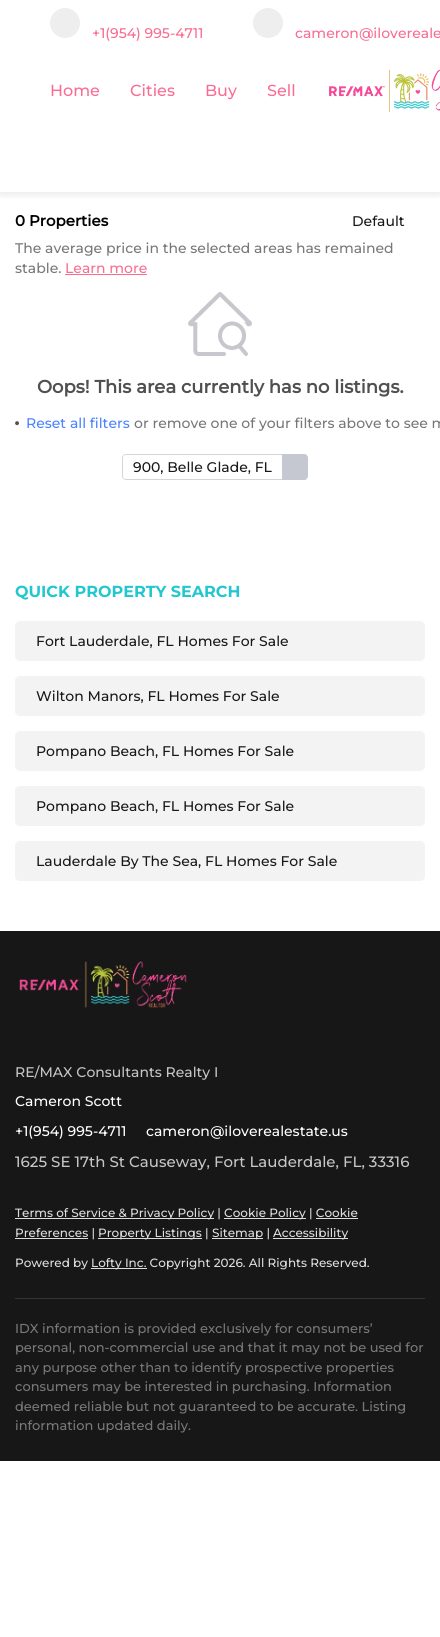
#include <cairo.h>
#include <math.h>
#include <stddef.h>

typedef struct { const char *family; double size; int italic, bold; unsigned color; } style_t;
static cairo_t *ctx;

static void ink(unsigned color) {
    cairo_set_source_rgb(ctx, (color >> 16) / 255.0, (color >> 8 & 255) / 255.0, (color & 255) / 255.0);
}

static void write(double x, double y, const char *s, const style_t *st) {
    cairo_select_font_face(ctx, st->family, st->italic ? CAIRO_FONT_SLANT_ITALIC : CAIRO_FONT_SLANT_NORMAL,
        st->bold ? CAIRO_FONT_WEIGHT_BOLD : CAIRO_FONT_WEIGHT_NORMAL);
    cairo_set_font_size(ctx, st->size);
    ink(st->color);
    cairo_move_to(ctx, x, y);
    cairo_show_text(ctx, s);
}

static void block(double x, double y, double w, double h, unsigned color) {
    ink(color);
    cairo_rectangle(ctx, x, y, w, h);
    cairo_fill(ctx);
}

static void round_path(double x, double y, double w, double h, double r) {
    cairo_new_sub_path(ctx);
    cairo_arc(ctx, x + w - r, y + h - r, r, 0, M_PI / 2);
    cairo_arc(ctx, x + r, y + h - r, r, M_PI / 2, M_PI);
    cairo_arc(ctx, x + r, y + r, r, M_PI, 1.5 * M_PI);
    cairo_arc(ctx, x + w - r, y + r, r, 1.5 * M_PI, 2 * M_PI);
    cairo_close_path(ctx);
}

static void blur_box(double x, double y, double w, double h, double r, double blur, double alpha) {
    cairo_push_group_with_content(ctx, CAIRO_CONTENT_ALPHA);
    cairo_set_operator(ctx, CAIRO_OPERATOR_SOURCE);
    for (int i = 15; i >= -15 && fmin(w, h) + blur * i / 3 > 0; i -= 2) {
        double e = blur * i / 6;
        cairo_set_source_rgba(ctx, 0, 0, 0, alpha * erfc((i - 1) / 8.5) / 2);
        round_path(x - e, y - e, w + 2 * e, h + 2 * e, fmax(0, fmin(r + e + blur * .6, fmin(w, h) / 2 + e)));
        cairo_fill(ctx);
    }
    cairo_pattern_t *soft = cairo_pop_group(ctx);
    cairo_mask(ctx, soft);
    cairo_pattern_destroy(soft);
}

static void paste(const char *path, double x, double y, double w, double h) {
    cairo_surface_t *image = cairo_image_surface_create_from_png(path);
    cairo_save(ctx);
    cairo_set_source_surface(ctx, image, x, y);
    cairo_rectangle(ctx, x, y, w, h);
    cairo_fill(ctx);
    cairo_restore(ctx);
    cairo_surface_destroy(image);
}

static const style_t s1 = {"Montserrat Medium", 14, 0, 0, 0xf96d93};
static const style_t s2 = {"Montserrat Medium", 16, 0, 0, 0xf96d93};
static const style_t s3 = {"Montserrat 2", 15, 0, 1, 0x000000};
static const style_t s4 = {"Montserrat Medium", 14, 0, 0, 0x191919};
static const style_t s5 = {"Montserrat Medium", 14, 0, 0, 0x787878};
static const style_t s6 = {"Montserrat 2", 18, 0, 1, 0x505050};
static const style_t s7 = {"Montserrat 2", 24, 0, 1, 0x505050};
static const style_t s8 = {"Montserrat Medium", 14, 0, 0, 0x4c84ff};
static const style_t s9 = {"Montserrat", 16, 0, 1, 0x22c7cf};
static const style_t s10 = {"Montserrat Medium", 14, 0, 0, 0xc5c5c5};
static const style_t s11 = {"Montserrat Medium", 14, 0, 0, 0xffffff};
static const style_t s12 = {"Montserrat Medium", 15, 0, 0, 0xc5c5c5};
static const style_t s13 = {"Montserrat Medium", 12, 0, 0, 0xdedede};
static const style_t s14 = {"Montserrat Medium", 13, 0, 0, 0x787878};

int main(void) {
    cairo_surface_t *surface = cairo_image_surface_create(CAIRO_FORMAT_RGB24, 440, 1637);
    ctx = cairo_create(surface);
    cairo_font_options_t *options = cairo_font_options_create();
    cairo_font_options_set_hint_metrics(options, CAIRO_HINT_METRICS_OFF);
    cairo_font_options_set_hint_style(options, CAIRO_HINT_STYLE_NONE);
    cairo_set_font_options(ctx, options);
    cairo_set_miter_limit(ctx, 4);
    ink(0xffffff);
    cairo_paint(ctx);
    cairo_save(ctx);
    cairo_rectangle(ctx, 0, 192, 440, 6);
    cairo_clip(ctx);
    ink(0x000a1e);
    blur_box(0, 134, 440, 60, 0, 5, 0.1);
    cairo_restore(ctx);
    block(0, 128, 440, 4, 0xffffff);
    ink(0xeeeeee);
    cairo_arc(ctx, 65, 23, 15, 0, 2 * M_PI);
    cairo_fill(ctx);
    write(92, 38, "+1(954) 995-4711", &s1);
    ink(0xeeeeee);
    cairo_new_path(ctx);
    cairo_arc(ctx, 268, 23, 15, 0, 2 * M_PI);
    cairo_fill(ctx);
    write(295, 38, "cameron@ilovereale", &s1);
    write(50, 96, "Home", &s2);
    write(130, 96, "Cities", &s2);
    write(205, 96, "Buy", &s2);
    write(267, 96, "Sell", &s2);
    paste("pic1.png", 329, 69, 111, 44);
    write(15, 226, "0 Properties", &s3);
    write(352, 226, "Default", &s4);
    write(15, 253, "The average price in the selected areas has remained", &s5);
    write(15, 273, "stable.", &s5);
    write(65, 273, "Learn more", &s1);
    block(65, 274, 82, 1, 0xf96d93);
    paste("pic2.png", 188, 292, 64, 64);
    write(37, 393, "Oops! This area currently has no listings.", &s6);
    write(14, 425, ".", &s7);
    write(26, 428, "Reset all filters", &s8);
    write(134, 428, "or remove one of your filters above to see m", &s5);
    ink(0xd5d5d5);
    cairo_set_fill_rule(ctx, CAIRO_FILL_RULE_EVEN_ODD);
    cairo_new_path(ctx);
    cairo_move_to(ctx, 126, 454);
    cairo_line_to(ctx, 304, 454);
    cairo_curve_to(ctx, 306, 454, 308, 456, 308, 458);
    cairo_line_to(ctx, 308, 476);
    cairo_curve_to(ctx, 308, 478, 306, 480, 304, 480);
    cairo_line_to(ctx, 126, 480);
    cairo_curve_to(ctx, 124, 480, 122, 478, 122, 476);
    cairo_line_to(ctx, 122, 458);
    cairo_curve_to(ctx, 122, 456, 124, 454, 126, 454);
    cairo_close_path(ctx);
    cairo_move_to(ctx, 126, 455);
    cairo_line_to(ctx, 304, 455);
    cairo_curve_to(ctx, 306, 455, 308, 456, 308, 458);
    cairo_line_to(ctx, 308, 476);
    cairo_curve_to(ctx, 308, 478, 306, 479, 304, 479);
    cairo_line_to(ctx, 126, 479);
    cairo_curve_to(ctx, 124, 479, 123, 478, 123, 476);
    cairo_line_to(ctx, 123, 458);
    cairo_curve_to(ctx, 123, 456, 124, 455, 126, 455);
    cairo_close_path(ctx);
    cairo_fill(ctx);
    write(133, 472, "900, Belle Glade, FL", &s4);
    ink(0xc6c8d1);
    cairo_new_path(ctx);
    cairo_move_to(ctx, 282, 454);
    cairo_line_to(ctx, 304, 454);
    cairo_curve_to(ctx, 306, 454, 308, 456, 308, 458);
    cairo_line_to(ctx, 308, 476);
    cairo_curve_to(ctx, 308, 478, 306, 480, 304, 480);
    cairo_line_to(ctx, 282, 480);
    cairo_close_path(ctx);
    cairo_fill(ctx);
    write(15, 597, "QUICK PROPERTY SEARCH", &s9);
    ink(0xf3f3f3);
    round_path(15.5, 621.5, 409, 39, 4.5);
    cairo_fill_preserve(ctx);
    cairo_set_line_width(ctx, 1);
    cairo_stroke(ctx);
    write(36, 646, "Fort Lauderdale, FL Homes For Sale", &s4);
    ink(0xf3f3f3);
    round_path(15.5, 676.5, 409, 39, 4.5);
    cairo_fill_preserve(ctx);
    cairo_stroke(ctx);
    write(36, 701, "Wilton Manors, FL Homes For Sale", &s4);
    ink(0xf3f3f3);
    round_path(15.5, 731.5, 409, 39, 4.5);
    cairo_fill_preserve(ctx);
    cairo_stroke(ctx);
    write(36, 756, "Pompano Beach, FL Homes For Sale", &s4);
    ink(0xf3f3f3);
    round_path(15.5, 786.5, 409, 39, 4.5);
    cairo_fill_preserve(ctx);
    cairo_stroke(ctx);
    write(36, 811, "Pompano Beach, FL Homes For Sale", &s4);
    ink(0xf3f3f3);
    round_path(15.5, 841.5, 409, 39, 4.5);
    cairo_fill_preserve(ctx);
    cairo_stroke(ctx);
    write(36, 866, "Lauderdale By The Sea, FL Homes For Sale", &s4);
    block(0, 931, 440, 530, 0x171717);
    paste("pic3.png", 19, 961, 168, 48);
    write(15, 1077, "RE/MAX Consultants Realty I", &s10);
    write(15, 1106, "Cameron Scott", &s11);
    write(15, 1136, "+1(954) 995-4711", &s11);
    write(146, 1136, "cameron@iloverealestate.us", &s11);
    write(15, 1167, "1625 SE 17th St Causeway, Fort Lauderdale, FL, 33316", &s12);
    block(15, 1218, 199, 1, 0xdedede);
    write(15, 1217, "Terms of Service & Privacy Policy |", &s13);
    block(224, 1218, 82, 1, 0xdedede);
    write(224, 1217, "Cookie Policy | Cookie", &s13);
    block(15, 1238, 73, 1, 0xdedede);
    write(15, 1237, "Preferences |", &s13);
    block(316, 1218, 42, 1, 0xdedede);
    block(98, 1238, 104, 1, 0xdedede);
    write(98, 1237, "Property Listings |", &s13);
    block(212, 1238, 51, 1, 0xdedede);
    write(212, 1237, "Sitemap |", &s13);
    block(273, 1238, 75, 1, 0xdedede);
    write(273, 1237, "Accessibility", &s13);
    write(15, 1267, "Powered by", &s13);
    block(91, 1268, 56, 1, 0xdedede);
    write(91, 1267, "Lofty Inc. Copyright 2026. All Rights Reserved.", &s13);
    block(15, 1298, 410, 1, 0x343434);
    write(15, 1333, "IDX information is provided exclusively for consumers’", &s14);
    write(15, 1352, "personal, non-commercial use and that it may not be used for", &s14);
    write(15, 1372, "any purpose other than to identify prospective properties", &s14);
    write(15, 1391, "consumers may be interested in purchasing. Information", &s14);
    write(15, 1411, "deemed reliable but not guaranteed to be accurate. Listing", &s14);
    write(15, 1430, "information updated daily.", &s14);
    cairo_surface_write_to_png(surface, "screenshot.png");
    cairo_font_options_destroy(options);
    cairo_destroy(ctx);
    cairo_surface_destroy(surface);
    return 0;
}
